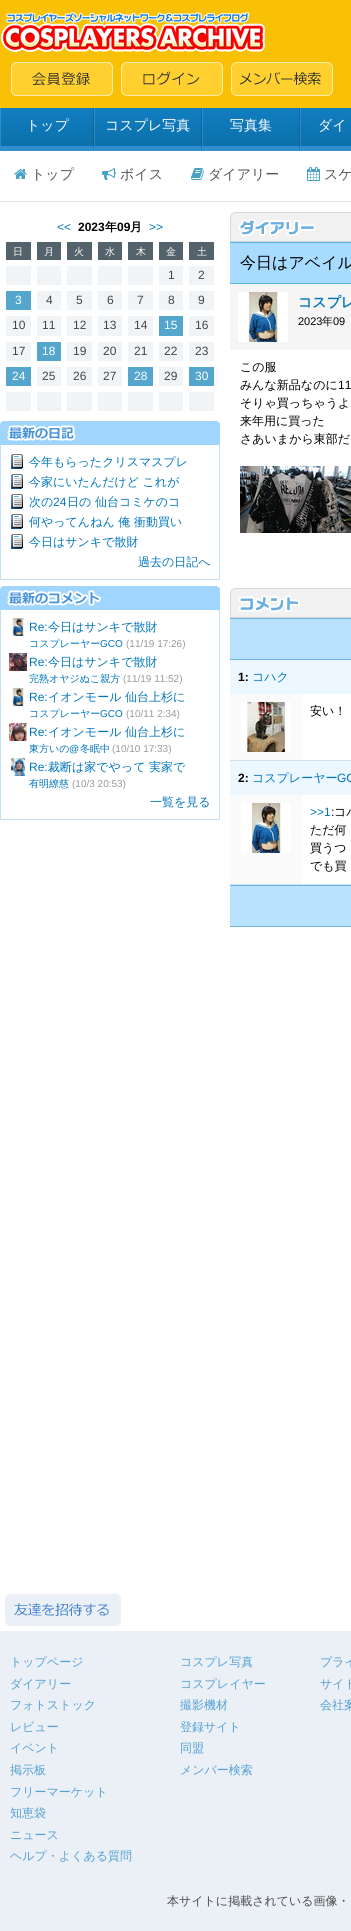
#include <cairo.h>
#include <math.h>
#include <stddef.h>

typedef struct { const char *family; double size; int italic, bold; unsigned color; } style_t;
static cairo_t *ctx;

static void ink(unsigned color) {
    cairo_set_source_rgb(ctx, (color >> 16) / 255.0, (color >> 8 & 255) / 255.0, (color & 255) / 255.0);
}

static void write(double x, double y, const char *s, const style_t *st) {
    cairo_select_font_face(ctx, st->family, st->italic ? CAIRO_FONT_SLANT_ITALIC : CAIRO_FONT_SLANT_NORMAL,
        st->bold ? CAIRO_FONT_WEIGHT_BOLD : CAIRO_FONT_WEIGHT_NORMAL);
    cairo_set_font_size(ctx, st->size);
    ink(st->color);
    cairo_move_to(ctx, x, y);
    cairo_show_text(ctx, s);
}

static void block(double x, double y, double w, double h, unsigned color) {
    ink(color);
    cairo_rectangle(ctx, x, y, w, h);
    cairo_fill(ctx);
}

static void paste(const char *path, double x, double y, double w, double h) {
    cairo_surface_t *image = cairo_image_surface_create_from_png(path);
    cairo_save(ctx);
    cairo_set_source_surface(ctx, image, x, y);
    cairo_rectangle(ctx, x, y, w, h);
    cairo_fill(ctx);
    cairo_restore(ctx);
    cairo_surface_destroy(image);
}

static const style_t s1 = {"WenQuanYi Zen Hei Medium", 14, 0, 0, 0xffffff};
static const style_t s2 = {"WenQuanYi Zen Hei Medium", 14, 0, 0, 0x555555};
static const style_t s3 = {"Liberation Sans", 12, 0, 0, 0x0075bb};
static const style_t s4 = {"Liberation Sans", 12, 0, 1, 0x000000};
static const style_t s5 = {"WenQuanYi Zen Hei", 12, 0, 1, 0x000000};
static const style_t s6 = {"WenQuanYi Zen Hei Medium", 10, 0, 0, 0xffffff};
static const style_t s7 = {"Liberation Sans", 12, 0, 0, 0x444444};
static const style_t s8 = {"Liberation Sans", 12, 0, 0, 0xffffff};
static const style_t s9 = {"WenQuanYi Zen Hei Medium", 12, 0, 0, 0x0075bb};
static const style_t s10 = {"WenQuanYi Zen Hei Medium", 10, 0, 0, 0x0075bb};
static const style_t s11 = {"Liberation Sans", 10, 0, 0, 0x0075bb};
static const style_t s12 = {"Liberation Sans", 10, 0, 0, 0x999999};
static const style_t s13 = {"WenQuanYi Zen Hei Medium", 16, 0, 0, 0x000000};
static const style_t s14 = {"WenQuanYi Zen Hei", 14, 0, 1, 0x0075bb};
static const style_t s15 = {"Liberation Sans", 11, 0, 0, 0x000000};
static const style_t s16 = {"WenQuanYi Zen Hei Medium", 11, 0, 0, 0x000000};
static const style_t s17 = {"WenQuanYi Zen Hei Medium", 12, 0, 0, 0x000000};
static const style_t s18 = {"Liberation Sans", 12, 0, 0, 0x000000};
static const style_t s19 = {"WenQuanYi Zen Hei Medium", 12, 0, 0, 0x54a1d3};
static const style_t s20 = {"WenQuanYi Zen Hei Medium", 12, 0, 0, 0x4b4b4b};

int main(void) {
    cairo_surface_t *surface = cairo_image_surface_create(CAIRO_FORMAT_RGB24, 351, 1931);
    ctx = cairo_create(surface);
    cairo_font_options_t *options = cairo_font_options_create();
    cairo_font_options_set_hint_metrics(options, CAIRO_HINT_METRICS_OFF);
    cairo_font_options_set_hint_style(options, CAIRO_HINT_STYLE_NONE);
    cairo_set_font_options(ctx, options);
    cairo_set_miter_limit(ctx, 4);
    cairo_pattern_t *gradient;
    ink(0xffffff);
    cairo_paint(ctx);
    block(0, 0, 351, 108, 0xf8c106);
    paste("pic1.png", 1, 12, 264, 40);
    paste("pic2.png", 11, 62, 102, 34);
    paste("pic3.png", 121, 62, 102, 34);
    paste("pic4.png", 231, 62, 102, 34);
    gradient = cairo_pattern_create_linear(176, 108, 176, 146);
    cairo_pattern_add_color_stop_rgba(gradient, 0, 0.071, 0.49, 0.757, 1);
    cairo_pattern_add_color_stop_rgba(gradient, 1, 0.043, 0.443, 0.671, 1);
    cairo_set_source(ctx, gradient);
    cairo_pattern_destroy(gradient);
    cairo_rectangle(ctx, 0, 108, 351, 38);
    cairo_fill(ctx);
    gradient = cairo_pattern_create_linear(47, 146, 47, 184);
    cairo_pattern_add_color_stop_rgba(gradient, 0, 0.071, 0.49, 0.757, 1);
    cairo_pattern_add_color_stop_rgba(gradient, 1, 0.043, 0.443, 0.671, 1);
    cairo_set_source(ctx, gradient);
    cairo_pattern_destroy(gradient);
    cairo_rectangle(ctx, 0, 146, 94, 5);
    cairo_fill(ctx);
    cairo_set_source_rgba(ctx, 0, 0, 0, 0.15);
    cairo_new_path(ctx);
    cairo_move_to(ctx, 94, 108);
    cairo_line_to(ctx, 94, 151);
    cairo_line_to(ctx, 93, 146);
    cairo_line_to(ctx, 93, 108);
    cairo_close_path(ctx);
    cairo_fill(ctx);
    ink(0x318dcf);
    cairo_new_path(ctx);
    cairo_move_to(ctx, 94, 151);
    cairo_line_to(ctx, 0, 151);
    cairo_line_to(ctx, 1, 146);
    cairo_line_to(ctx, 93, 146);
    cairo_close_path(ctx);
    cairo_fill(ctx);
    cairo_set_source_rgba(ctx, 1, 1, 1, 0.15);
    cairo_new_path(ctx);
    cairo_move_to(ctx, 0, 151);
    cairo_line_to(ctx, 0, 108);
    cairo_line_to(ctx, 1, 108);
    cairo_line_to(ctx, 1, 146);
    cairo_close_path(ctx);
    cairo_fill(ctx);
    write(26, 130, "トップ", &s1);
    gradient = cairo_pattern_create_linear(148, 146, 148, 184);
    cairo_pattern_add_color_stop_rgba(gradient, 0, 0.071, 0.49, 0.757, 1);
    cairo_pattern_add_color_stop_rgba(gradient, 1, 0.043, 0.443, 0.671, 1);
    cairo_set_source(ctx, gradient);
    cairo_pattern_destroy(gradient);
    cairo_rectangle(ctx, 94, 146, 108, 5);
    cairo_fill(ctx);
    cairo_set_source_rgba(ctx, 0, 0, 0, 0.15);
    cairo_new_path(ctx);
    cairo_move_to(ctx, 202, 108);
    cairo_line_to(ctx, 202, 151);
    cairo_line_to(ctx, 201, 146);
    cairo_line_to(ctx, 201, 108);
    cairo_close_path(ctx);
    cairo_fill(ctx);
    ink(0x318dcf);
    cairo_new_path(ctx);
    cairo_move_to(ctx, 202, 151);
    cairo_line_to(ctx, 94, 151);
    cairo_line_to(ctx, 95, 146);
    cairo_line_to(ctx, 201, 146);
    cairo_close_path(ctx);
    cairo_fill(ctx);
    cairo_set_source_rgba(ctx, 1, 1, 1, 0.15);
    cairo_new_path(ctx);
    cairo_move_to(ctx, 94, 151);
    cairo_line_to(ctx, 94, 108);
    cairo_line_to(ctx, 95, 108);
    cairo_line_to(ctx, 95, 146);
    cairo_close_path(ctx);
    cairo_fill(ctx);
    write(105, 130, "コスプレ写真", &s1);
    gradient = cairo_pattern_create_linear(251, 146, 251, 184);
    cairo_pattern_add_color_stop_rgba(gradient, 0, 0.071, 0.49, 0.757, 1);
    cairo_pattern_add_color_stop_rgba(gradient, 1, 0.043, 0.443, 0.671, 1);
    cairo_set_source(ctx, gradient);
    cairo_pattern_destroy(gradient);
    cairo_rectangle(ctx, 202, 146, 98, 5);
    cairo_fill(ctx);
    cairo_set_source_rgba(ctx, 0, 0, 0, 0.15);
    cairo_new_path(ctx);
    cairo_move_to(ctx, 300, 108);
    cairo_line_to(ctx, 300, 151);
    cairo_line_to(ctx, 299, 146);
    cairo_line_to(ctx, 299, 108);
    cairo_close_path(ctx);
    cairo_fill(ctx);
    ink(0x318dcf);
    cairo_new_path(ctx);
    cairo_move_to(ctx, 300, 151);
    cairo_line_to(ctx, 202, 151);
    cairo_line_to(ctx, 203, 146);
    cairo_line_to(ctx, 299, 146);
    cairo_close_path(ctx);
    cairo_fill(ctx);
    cairo_set_source_rgba(ctx, 1, 1, 1, 0.15);
    cairo_new_path(ctx);
    cairo_move_to(ctx, 202, 151);
    cairo_line_to(ctx, 202, 108);
    cairo_line_to(ctx, 203, 108);
    cairo_line_to(ctx, 203, 146);
    cairo_close_path(ctx);
    cairo_fill(ctx);
    write(230, 130, "写真集", &s1);
    gradient = cairo_pattern_create_linear(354, 146, 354, 184);
    cairo_pattern_add_color_stop_rgba(gradient, 0, 0.071, 0.49, 0.757, 1);
    cairo_pattern_add_color_stop_rgba(gradient, 1, 0.043, 0.443, 0.671, 1);
    cairo_set_source(ctx, gradient);
    cairo_pattern_destroy(gradient);
    cairo_rectangle(ctx, 300, 146, 1, 5);
    cairo_fill(ctx);
    ink(0x318dcf);
    cairo_new_path(ctx);
    cairo_move_to(ctx, 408, 151);
    cairo_line_to(ctx, 300, 151);
    cairo_line_to(ctx, 301, 146);
    cairo_line_to(ctx, 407, 146);
    cairo_close_path(ctx);
    cairo_fill(ctx);
    cairo_set_source_rgba(ctx, 1, 1, 1, 0.15);
    cairo_new_path(ctx);
    cairo_move_to(ctx, 300, 151);
    cairo_line_to(ctx, 300, 108);
    cairo_line_to(ctx, 301, 108);
    cairo_line_to(ctx, 301, 146);
    cairo_close_path(ctx);
    cairo_fill(ctx);
    write(318, 130, "ダイ", &s1);
    block(0, 201, 351, 1, 0xe4e6e7);
    paste("pic5.png", 14, 169, 13, 10);
    write(31, 179, "トップ", &s2);
    paste("pic6.png", 102, 168, 14, 12);
    write(120, 179, "ボイス", &s2);
    paste("pic7.png", 191, 168, 13, 12);
    write(208, 179, "ダイアリー", &s2);
    paste("pic8.png", 307, 167, 13, 14);
    write(324, 179, "スケ", &s2);
    write(57, 231, "<<", &s3);
    write(78, 231, "2023", &s4);
    write(105, 231, "年", &s5);
    write(117, 231, "09", &s4);
    write(130, 231, "月", &s5);
    write(149, 231, ">>", &s3);
    block(6, 242, 25, 18, 0x54626b);
    write(13, 255, "日", &s6);
    block(37, 242, 24, 18, 0x54626b);
    write(44, 255, "月", &s6);
    block(67, 242, 25, 18, 0x54626b);
    write(74, 255, "火", &s6);
    block(98, 242, 24, 18, 0x54626b);
    write(105, 255, "水", &s6);
    block(128, 242, 25, 18, 0x54626b);
    write(136, 255, "木", &s6);
    block(159, 242, 24, 18, 0x54626b);
    write(166, 255, "金", &s6);
    block(189, 242, 25, 18, 0x54626b);
    write(197, 255, "土", &s6);
    block(6, 266, 25, 19, 0xf1f4f6);
    block(37, 266, 24, 19, 0xf1f4f6);
    block(67, 266, 25, 19, 0xf1f4f6);
    block(98, 266, 24, 19, 0xf1f4f6);
    block(128, 266, 25, 19, 0xf1f4f6);
    block(159, 266, 24, 19, 0xf1f4f6);
    write(168, 279, "1", &s7);
    block(189, 266, 25, 19, 0xf1f4f6);
    write(198, 279, "2", &s7);
    block(6, 291, 25, 19, 0x54a6cc);
    write(15, 304, "3", &s8);
    block(37, 291, 24, 19, 0xf1f4f6);
    write(46, 304, "4", &s7);
    block(67, 291, 25, 19, 0xf1f4f6);
    write(76, 304, "5", &s7);
    block(98, 291, 24, 19, 0xf1f4f6);
    write(107, 304, "6", &s7);
    block(128, 291, 25, 19, 0xf1f4f6);
    write(137, 304, "7", &s7);
    block(159, 291, 24, 19, 0xf1f4f6);
    write(168, 304, "8", &s7);
    block(189, 291, 25, 19, 0xf1f4f6);
    write(198, 304, "9", &s7);
    block(6, 316, 25, 20, 0xf1f4f6);
    write(12, 329, "10", &s7);
    block(37, 316, 24, 20, 0xf1f4f6);
    write(42, 329, "11", &s7);
    block(67, 316, 25, 20, 0xf1f4f6);
    write(73, 329, "12", &s7);
    block(98, 316, 24, 20, 0xf1f4f6);
    write(103, 329, "13", &s7);
    block(128, 316, 25, 20, 0xf1f4f6);
    write(134, 329, "14", &s7);
    block(159, 316, 24, 20, 0x54a6cc);
    write(164, 329, "15", &s8);
    block(189, 316, 25, 20, 0xf1f4f6);
    write(195, 329, "16", &s7);
    block(6, 342, 25, 19, 0xf1f4f6);
    write(12, 355, "17", &s7);
    block(37, 342, 24, 19, 0x54a6cc);
    write(42, 355, "18", &s8);
    block(67, 342, 25, 19, 0xf1f4f6);
    write(73, 355, "19", &s7);
    block(98, 342, 24, 19, 0xf1f4f6);
    write(103, 355, "20", &s7);
    block(128, 342, 25, 19, 0xf1f4f6);
    write(134, 355, "21", &s7);
    block(159, 342, 24, 19, 0xf1f4f6);
    write(164, 355, "22", &s7);
    block(189, 342, 25, 19, 0xf1f4f6);
    write(195, 355, "23", &s7);
    block(6, 367, 25, 19, 0x54a6cc);
    write(12, 380, "24", &s8);
    block(37, 367, 24, 19, 0xf1f4f6);
    write(42, 380, "25", &s7);
    block(67, 367, 25, 19, 0xf1f4f6);
    write(73, 380, "26", &s7);
    block(98, 367, 24, 19, 0xf1f4f6);
    write(103, 380, "27", &s7);
    block(128, 367, 25, 19, 0x54a6cc);
    write(134, 380, "28", &s8);
    block(159, 367, 24, 19, 0xf1f4f6);
    write(164, 380, "29", &s7);
    block(189, 367, 25, 19, 0x54a6cc);
    write(195, 380, "30", &s8);
    block(6, 392, 25, 19, 0xf1f4f6);
    block(37, 392, 24, 19, 0xf1f4f6);
    block(67, 392, 25, 19, 0xf1f4f6);
    block(98, 392, 24, 19, 0xf1f4f6);
    block(128, 392, 25, 19, 0xf1f4f6);
    block(159, 392, 24, 19, 0xf1f4f6);
    block(189, 392, 25, 19, 0xf1f4f6);
    paste("pic9.png", 0, 421, 220, 24);
    block(219, 445, 1, 135, 0xc4dff4);
    block(0, 579, 220, 1, 0xc4dff4);
    block(0, 445, 1, 135, 0xc4dff4);
    paste("pic10.png", 11, 454, 12, 15);
    write(29, 466, "今年もらったクリスマスプレ", &s9);
    paste("pic10.png", 11, 474, 12, 15);
    write(29, 486, "今家にいたんだけど これが", &s9);
    paste("pic10.png", 11, 494, 12, 15);
    write(29, 506, "次の", &s9);
    write(53, 506, "24", &s3);
    write(67, 506, "日の 仙台コミケのコ", &s9);
    paste("pic10.png", 11, 514, 12, 15);
    write(29, 526, "何やってんねん 俺 衝動買い", &s9);
    paste("pic10.png", 11, 534, 12, 15);
    write(29, 546, "今日はサンキで散財", &s9);
    write(138, 566, "過去の日記へ", &s9);
    paste("pic11.png", 0, 586, 220, 24);
    block(219, 610, 1, 210, 0xc4dff4);
    block(0, 819, 220, 1, 0xc4dff4);
    block(0, 610, 1, 210, 0xc4dff4);
    paste("pic12.png", 12, 618, 12, 18);
    write(29, 631, "Re:", &s3);
    write(48, 631, "今日はサンキで散財", &s9);
    write(29, 647, "コスプレーヤー", &s10);
    write(100, 647, "GCO", &s11);
    write(126, 647, "(11/19 17:26)", &s12);
    paste("pic13.png", 9, 653, 18, 18);
    write(29, 666, "Re:", &s3);
    write(48, 666, "今日はサンキで散財", &s9);
    write(29, 682, "完熟オヤジぬこ親方", &s10);
    write(123, 682, "(11/19 11:52)", &s12);
    paste("pic12.png", 12, 688, 12, 18);
    write(29, 701, "Re:", &s3);
    write(48, 701, "イオンモール 仙台上杉に", &s9);
    write(29, 717, "コスプレーヤー", &s10);
    write(100, 717, "GCO", &s11);
    write(126, 717, "(10/11 2:34)", &s12);
    paste("pic14.png", 9, 723, 18, 18);
    write(29, 736, "Re:", &s3);
    write(48, 736, "イオンモール 仙台上杉に", &s9);
    write(29, 752, "東方いの", &s10);
    write(69, 752, "@", &s11);
    write(80, 752, "冬眠中", &s10);
    write(112, 752, "(10/10 17:33)", &s12);
    paste("pic15.png", 11, 758, 14, 18);
    write(29, 771, "Re:", &s3);
    write(48, 771, "裁断は家でやって 実家で", &s9);
    write(29, 787, "有明繚慈", &s10);
    write(72, 787, "(10/3 20:53)", &s12);
    write(150, 806, "一覧を見る", &s9);
    paste("pic16.png", 230, 212, 121, 30);
    block(230, 243, 121, 40, 0xa7dbff);
    block(230, 242, 121, 1, 0x59b3e6);
    block(230, 283, 121, 1, 0x59b3e6);
    write(240, 268, "今日はアベイル", &s13);
    block(230, 284, 121, 66, 0xf5f5f5);
    paste("pic17.png", 238, 292, 50, 50);
    write(298, 307, "コスプレ", &s14);
    write(298, 325, "2023", &s15);
    write(322, 325, "年", &s16);
    write(333, 325, "09", &s15);
    write(240, 371, "この服", &s17);
    write(240, 389, "みんな新品なのに", &s17);
    write(338, 389, "11", &s18);
    write(240, 407, "そりゃ買っちゃうよ", &s17);
    write(240, 425, "来年用に買った", &s17);
    write(240, 443, "さあいまから東部だ", &s17);
    paste("pic18.png", 240, 466, 111, 67);
    paste("pic19.png", 230, 588, 121, 30);
    block(230, 619, 121, 40, 0xb8e2ff);
    block(230, 618, 121, 1, 0x71b4e2);
    block(230, 659, 121, 1, 0x71b4e2);
    block(230, 660, 121, 34, 0xecf7ff);
    write(238, 681, "1:", &s4);
    write(252, 681, "コハク", &s9);
    block(230, 694, 72, 66, 0xfafafa);
    block(230, 760, 121, 1, 0xcee1ef);
    paste("pic20.png", 241, 702, 50, 50);
    write(310, 715, "安い！", &s17);
    block(230, 761, 121, 34, 0xecf7ff);
    write(238, 782, "2:", &s4);
    write(252, 782, "コスプレーヤー", &s9);
    write(337, 782, "GC", &s3);
    block(230, 795, 72, 89, 0xfafafa);
    block(230, 884, 121, 1, 0xcee1ef);
    paste("pic17.png", 241, 803, 50, 50);
    write(310, 816, ">>1", &s3);
    write(331, 816, ":", &s18);
    write(334, 816, "コハ", &s17);
    write(310, 834, "ただ何", &s17);
    write(310, 852, "買うつ", &s17);
    write(310, 870, "でも買", &s17);
    block(230, 886, 121, 40, 0xb8e2ff);
    block(230, 885, 121, 1, 0x71b4e2);
    block(230, 926, 121, 1, 0x71b4e2);
    paste("pic21.png", 5, 1594, 116, 32);
    block(0, 1631, 351, 300, 0xebeff6);
    write(10, 1666, "トップページ", &s19);
    write(10, 1688, "ダイアリー", &s19);
    write(10, 1709, "フォトストック", &s19);
    write(10, 1731, "レビュー", &s19);
    write(10, 1752, "イベント", &s19);
    write(10, 1774, "掲示板", &s19);
    write(10, 1796, "フリーマーケット", &s19);
    write(10, 1817, "知恵袋", &s19);
    write(10, 1839, "ニュース", &s19);
    write(10, 1860, "ヘルプ・よくある質問", &s19);
    write(180, 1666, "コスプレ写真", &s19);
    write(180, 1688, "コスプレイヤー", &s19);
    write(180, 1709, "撮影機材", &s19);
    write(180, 1731, "登録サイト", &s19);
    write(180, 1752, "同盟", &s19);
    write(180, 1774, "メンバー検索", &s19);
    write(320, 1666, "プライ", &s19);
    write(320, 1688, "サイト", &s19);
    write(320, 1709, "会社案", &s19);
    write(167, 1905, "本サイトに掲載されている画像・", &s20);
    cairo_surface_write_to_png(surface, "screenshot.png");
    cairo_font_options_destroy(options);
    cairo_destroy(ctx);
    cairo_surface_destroy(surface);
    return 0;
}
